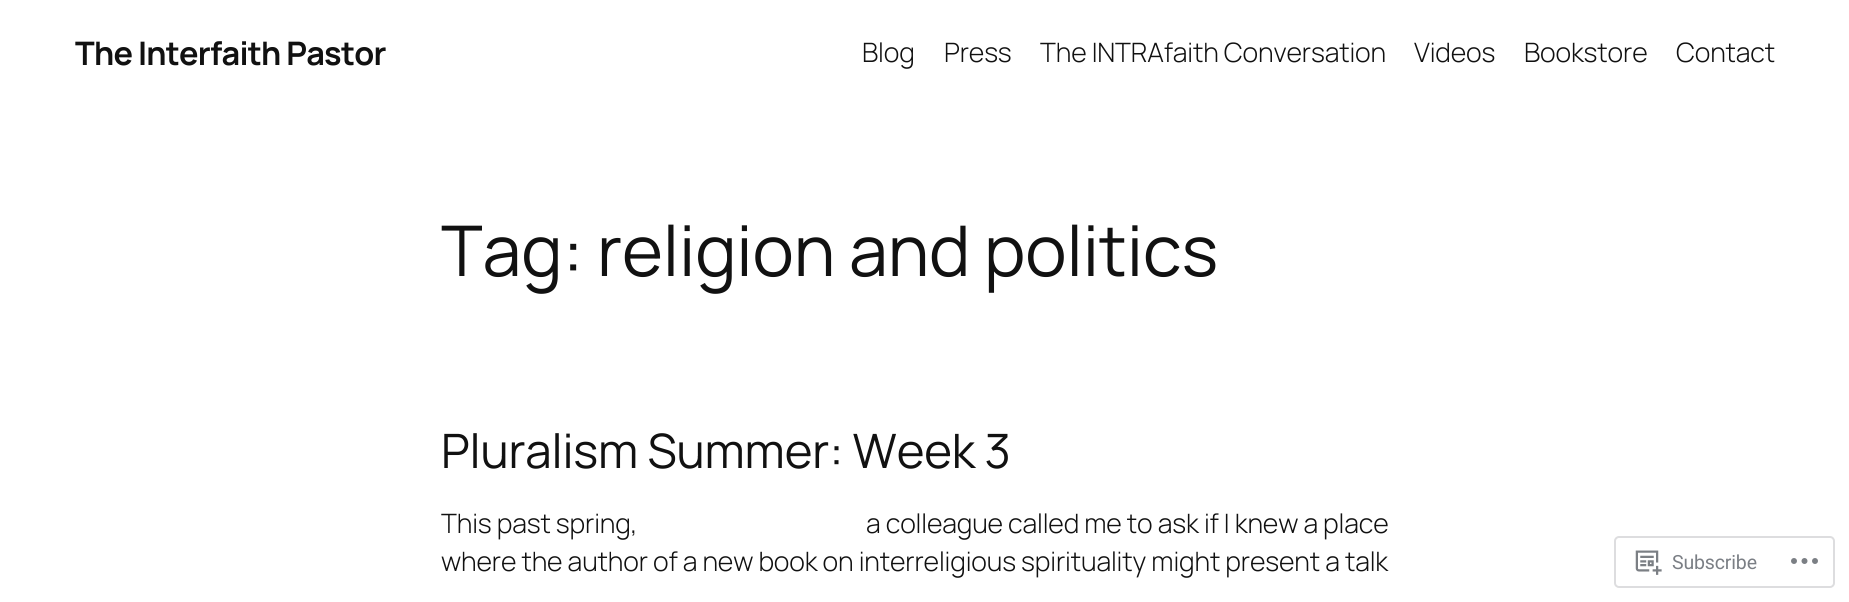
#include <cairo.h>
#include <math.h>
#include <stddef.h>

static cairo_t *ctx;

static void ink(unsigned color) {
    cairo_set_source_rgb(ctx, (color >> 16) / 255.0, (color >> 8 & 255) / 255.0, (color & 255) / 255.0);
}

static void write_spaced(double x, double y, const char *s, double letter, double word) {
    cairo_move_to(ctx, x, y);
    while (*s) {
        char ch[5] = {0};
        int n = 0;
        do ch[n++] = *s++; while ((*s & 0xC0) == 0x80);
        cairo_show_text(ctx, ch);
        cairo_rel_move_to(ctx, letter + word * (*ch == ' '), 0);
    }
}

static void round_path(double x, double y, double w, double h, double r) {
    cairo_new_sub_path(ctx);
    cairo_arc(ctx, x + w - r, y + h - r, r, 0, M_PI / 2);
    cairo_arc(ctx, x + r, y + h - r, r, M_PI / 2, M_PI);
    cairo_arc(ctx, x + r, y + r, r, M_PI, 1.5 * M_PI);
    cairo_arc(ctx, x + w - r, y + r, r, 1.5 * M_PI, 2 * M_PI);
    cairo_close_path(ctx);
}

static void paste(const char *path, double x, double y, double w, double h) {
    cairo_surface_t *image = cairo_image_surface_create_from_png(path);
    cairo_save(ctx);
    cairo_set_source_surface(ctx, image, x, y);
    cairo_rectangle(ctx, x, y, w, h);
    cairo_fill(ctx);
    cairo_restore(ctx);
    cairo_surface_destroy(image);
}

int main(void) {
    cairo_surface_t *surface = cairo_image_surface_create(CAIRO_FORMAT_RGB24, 1849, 602);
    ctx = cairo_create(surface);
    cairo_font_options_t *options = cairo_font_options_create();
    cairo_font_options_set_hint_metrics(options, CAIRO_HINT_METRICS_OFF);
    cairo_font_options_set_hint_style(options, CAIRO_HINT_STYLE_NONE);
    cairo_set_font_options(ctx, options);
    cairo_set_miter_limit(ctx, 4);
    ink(0xffffff);
    cairo_paint(ctx);
    cairo_select_font_face(ctx, "Manrope", CAIRO_FONT_SLANT_NORMAL, CAIRO_FONT_WEIGHT_BOLD);
    cairo_set_font_size(ctx, 32.4);
    ink(0x111111);
    write_spaced(75, 65, "The Interfaith Pastor", -0.75, 0);
    cairo_select_font_face(ctx, "Manrope Light", CAIRO_FONT_SLANT_NORMAL, CAIRO_FONT_WEIGHT_NORMAL);
    cairo_set_font_size(ctx, 26.7);
    write_spaced(862, 62, "Blog", -0.15, 0);
    write_spaced(944, 62, "Press", -0.15, 0);
    write_spaced(1040, 62, "The INTRAfaith Conversation", -0.15, 0);
    write_spaced(1414, 62, "Videos", -0.15, 0);
    write_spaced(1524, 62, "Bookstore", -0.15, 0);
    write_spaced(1676, 62, "Contact", -0.15, 0);
    cairo_select_font_face(ctx, "Manrope", CAIRO_FONT_SLANT_NORMAL, CAIRO_FONT_WEIGHT_NORMAL);
    cairo_set_font_size(ctx, 69.9);
    write_spaced(441, 276, "Tag: religion and politics", -0.15, 0);
    cairo_set_font_size(ctx, 47.4);
    write_spaced(441, 468, "Pluralism Summer: Week 3", -0.15, 0);
    cairo_select_font_face(ctx, "Manrope Light", CAIRO_FONT_SLANT_NORMAL, CAIRO_FONT_WEIGHT_NORMAL);
    cairo_set_font_size(ctx, 26.7);
    write_spaced(441, 533, "This past spring,", -0.15, 0);
    write_spaced(866, 533, "a colleague called me to ask if I knew a place", -0.15, 0);
    write_spaced(441, 571, "where the author of a new book on interreligious spirituality might present a talk", -0.15, 0);
    round_path(1615, 537, 219, 50, 4);
    ink(0xdddddf);
    cairo_stroke(ctx);
    paste("pic1.png", 1635, 550, 27, 25);
    cairo_select_font_face(ctx, "Roboto", CAIRO_FONT_SLANT_NORMAL, CAIRO_FONT_WEIGHT_NORMAL);
    cairo_set_font_size(ctx, 19.5);
    ink(0x7b7f85);
    write_spaced(1672, 569, "Subscribe", -0.15, 0);
    paste("pic2.png", 1791, 558, 27, 6);
    cairo_surface_write_to_png(surface, "screenshot.png");
    cairo_font_options_destroy(options);
    cairo_destroy(ctx);
    cairo_surface_destroy(surface);
    return 0;
}
